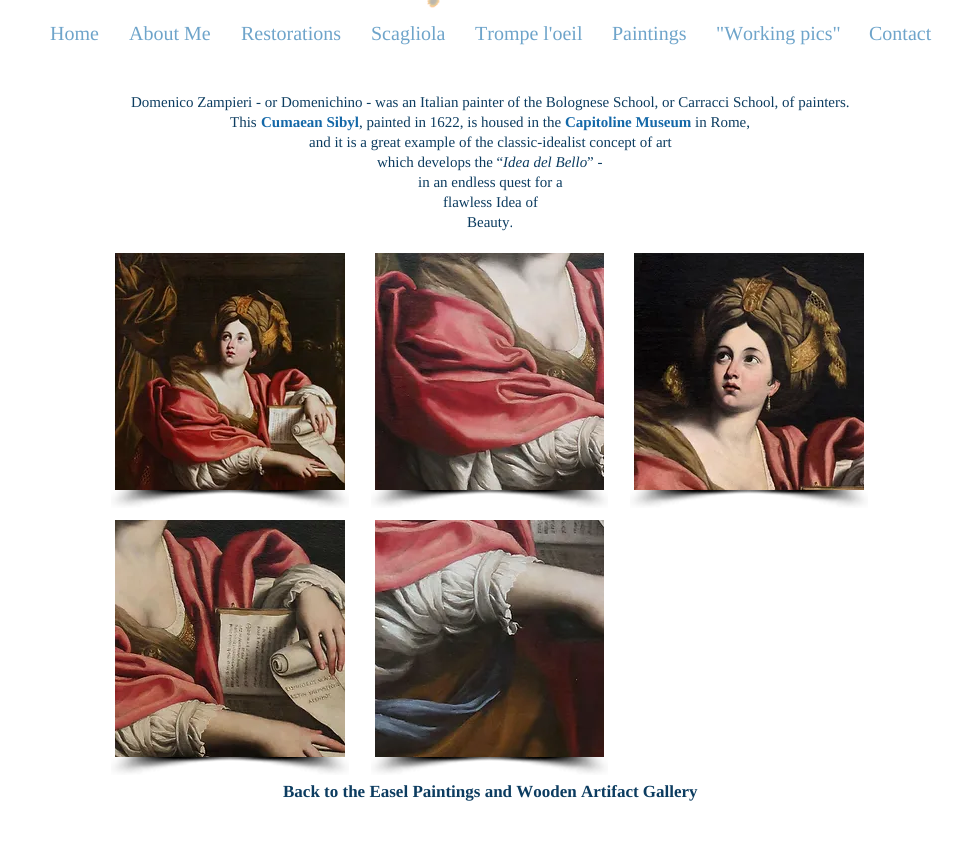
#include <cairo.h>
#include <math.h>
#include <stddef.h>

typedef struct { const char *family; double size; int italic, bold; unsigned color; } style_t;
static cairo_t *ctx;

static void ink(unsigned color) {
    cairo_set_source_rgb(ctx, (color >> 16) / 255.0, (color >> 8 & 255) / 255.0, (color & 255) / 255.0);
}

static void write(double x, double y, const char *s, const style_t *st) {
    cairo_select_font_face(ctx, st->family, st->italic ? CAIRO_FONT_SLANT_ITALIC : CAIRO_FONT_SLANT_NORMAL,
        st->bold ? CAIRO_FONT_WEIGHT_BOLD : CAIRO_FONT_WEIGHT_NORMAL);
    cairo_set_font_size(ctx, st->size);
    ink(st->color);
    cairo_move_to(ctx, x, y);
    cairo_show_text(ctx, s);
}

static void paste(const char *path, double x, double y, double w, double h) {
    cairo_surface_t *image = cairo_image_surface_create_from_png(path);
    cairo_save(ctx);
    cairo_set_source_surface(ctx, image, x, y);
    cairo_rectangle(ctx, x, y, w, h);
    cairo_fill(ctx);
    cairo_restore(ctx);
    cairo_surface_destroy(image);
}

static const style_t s1 = {"Liberation Serif", 20, 0, 0, 0x6ea4ca};
static const style_t s2 = {"Liberation Serif", 15, 0, 0, 0x0c3c60};
static const style_t s3 = {"Liberation Serif", 15, 0, 1, 0x1468a8};
static const style_t s4 = {"Liberation Serif", 15, 1, 0, 0x0c3c60};
static const style_t s5 = {"Liberation Serif", 17, 0, 1, 0x0c3c60};

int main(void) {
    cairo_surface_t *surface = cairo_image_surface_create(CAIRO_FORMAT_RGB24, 971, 854);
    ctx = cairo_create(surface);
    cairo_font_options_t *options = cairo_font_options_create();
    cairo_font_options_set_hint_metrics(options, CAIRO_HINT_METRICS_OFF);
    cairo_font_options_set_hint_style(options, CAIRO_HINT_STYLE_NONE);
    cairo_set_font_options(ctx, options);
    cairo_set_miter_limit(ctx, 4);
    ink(0xffffff);
    cairo_paint(ctx);
    paste("pic1.png", 427, 0, 13, 8);
    write(50, 40, "Home", &s1);
    write(129, 40, "About Me", &s1);
    write(241, 40, "Restorations", &s1);
    write(371, 40, "Scagliola", &s1);
    write(475, 40, "Trompe l'oeil", &s1);
    write(612, 40, "Paintings", &s1);
    write(716, 40, "\"Working pics\"", &s1);
    write(869, 40, "Contact", &s1);
    write(131, 107, "Domenico Zampieri - or Domenichino - was an Italian painter of the Bolognese School, or Carracci School, of painters.", &s2);
    write(230, 127, "This", &s2);
    write(261, 127, "Cumaean Sibyl", &s3);
    write(359, 127, ", painted in 1622, is housed in the", &s2);
    write(565, 127, "Capitoline Museum", &s3);
    write(695, 127, "in Rome,", &s2);
    write(309, 147, "and it is a great example of the classic-idealist concept of art", &s2);
    write(377, 167, "which develops the “", &s2);
    write(503, 167, "Idea del Bello", &s4);
    write(587, 167, "” -", &s2);
    write(418, 187, "in an endless quest for a", &s2);
    write(443, 207, "flawless Idea of", &s2);
    write(467, 227, "Beauty.", &s2);
    paste("pic2.png", 115, 253, 230, 237);
    paste("pic3.png", 111, 490, 154, 18);
    paste("pic4.png", 210, 490, 139, 18);
    paste("pic5.png", 375, 253, 229, 237);
    paste("pic3.png", 371, 490, 154, 18);
    paste("pic6.png", 469, 490, 139, 18);
    paste("pic7.png", 634, 253, 230, 237);
    paste("pic3.png", 630, 490, 154, 18);
    paste("pic4.png", 729, 490, 139, 18);
    paste("pic8.png", 115, 520, 230, 237);
    paste("pic3.png", 111, 757, 154, 18);
    paste("pic4.png", 210, 757, 139, 18);
    paste("pic9.png", 375, 520, 229, 237);
    paste("pic3.png", 371, 757, 154, 18);
    paste("pic6.png", 469, 757, 139, 18);
    write(283, 797, "Back to the Easel Paintings and Wooden Artifact Gallery", &s5);
    cairo_surface_write_to_png(surface, "screenshot.png");
    cairo_font_options_destroy(options);
    cairo_destroy(ctx);
    cairo_surface_destroy(surface);
    return 0;
}
